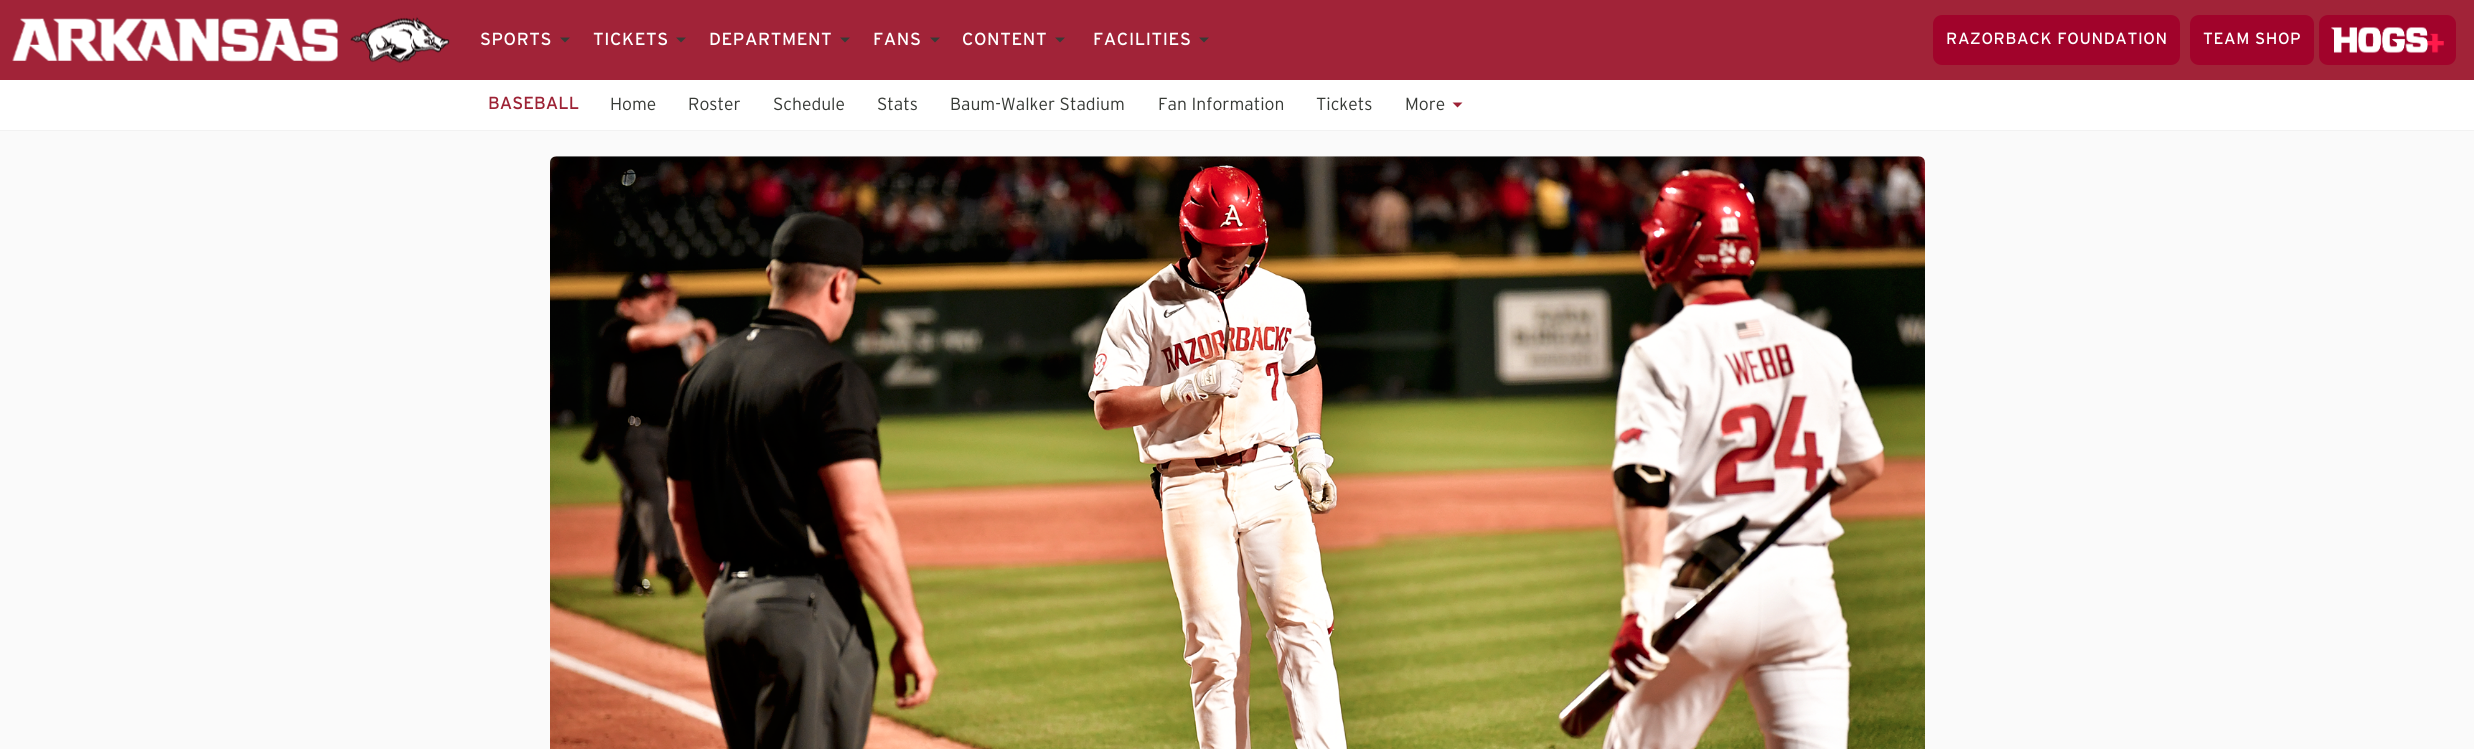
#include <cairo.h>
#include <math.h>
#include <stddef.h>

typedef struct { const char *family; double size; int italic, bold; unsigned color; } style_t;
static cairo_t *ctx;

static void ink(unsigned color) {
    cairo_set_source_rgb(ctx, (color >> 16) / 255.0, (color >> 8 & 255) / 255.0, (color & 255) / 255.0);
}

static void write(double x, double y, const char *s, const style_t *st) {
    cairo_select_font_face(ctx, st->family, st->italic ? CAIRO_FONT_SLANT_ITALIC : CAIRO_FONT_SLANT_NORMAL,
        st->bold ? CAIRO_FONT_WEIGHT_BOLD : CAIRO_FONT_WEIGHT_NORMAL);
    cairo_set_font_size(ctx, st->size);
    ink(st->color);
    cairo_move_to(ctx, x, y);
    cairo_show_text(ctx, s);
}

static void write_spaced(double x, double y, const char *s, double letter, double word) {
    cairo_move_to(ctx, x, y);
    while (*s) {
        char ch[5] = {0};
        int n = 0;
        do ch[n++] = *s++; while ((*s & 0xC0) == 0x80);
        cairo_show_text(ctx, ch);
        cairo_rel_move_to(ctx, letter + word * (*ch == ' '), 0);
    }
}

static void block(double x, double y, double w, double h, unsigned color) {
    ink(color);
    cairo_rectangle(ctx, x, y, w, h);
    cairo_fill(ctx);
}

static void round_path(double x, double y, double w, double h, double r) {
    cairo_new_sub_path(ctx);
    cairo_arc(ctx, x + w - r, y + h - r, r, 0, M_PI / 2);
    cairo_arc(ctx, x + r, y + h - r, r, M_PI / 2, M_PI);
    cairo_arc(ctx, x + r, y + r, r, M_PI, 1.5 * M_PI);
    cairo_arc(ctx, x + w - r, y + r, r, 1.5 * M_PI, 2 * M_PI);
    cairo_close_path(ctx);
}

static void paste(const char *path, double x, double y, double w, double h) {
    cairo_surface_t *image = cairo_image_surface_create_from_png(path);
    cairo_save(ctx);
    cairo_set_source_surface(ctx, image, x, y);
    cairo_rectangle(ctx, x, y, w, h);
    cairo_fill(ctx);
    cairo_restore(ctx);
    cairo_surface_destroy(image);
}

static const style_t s1 = {"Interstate", 17.5, 0, 0, 0x9d2235};
static const style_t s2 = {"Interstate Light", 17.5, 0, 0, 0x373a36};

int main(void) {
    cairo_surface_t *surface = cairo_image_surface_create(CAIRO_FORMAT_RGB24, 2474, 749);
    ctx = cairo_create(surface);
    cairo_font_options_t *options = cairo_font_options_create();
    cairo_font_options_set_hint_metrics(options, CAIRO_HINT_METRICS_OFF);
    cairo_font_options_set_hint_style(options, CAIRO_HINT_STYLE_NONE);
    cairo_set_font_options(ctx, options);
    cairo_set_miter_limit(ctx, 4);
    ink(0xfafafa);
    cairo_paint(ctx);
    block(0, 0, 2474, 80, 0xa12338);
    paste("pic1.png", 12, 18, 326, 44);
    paste("pic2.png", 350, 17, 100, 46);
    cairo_select_font_face(ctx, "Interstate", CAIRO_FONT_SLANT_NORMAL, CAIRO_FONT_WEIGHT_NORMAL);
    cairo_set_font_size(ctx, 17.5);
    ink(0xffffff);
    write_spaced(480, 45, "SPORTS", 0.6, 0);
    ink(0x383a36);
    cairo_new_path(ctx);
    cairo_move_to(ctx, 560, 37.5);
    cairo_line_to(ctx, 570, 37.5);
    cairo_line_to(ctx, 565, 42.5);
    cairo_close_path(ctx);
    cairo_fill(ctx);
    ink(0xffffff);
    write_spaced(593, 45, "TICKETS", 0.6, 0);
    ink(0x383a36);
    cairo_new_path(ctx);
    cairo_move_to(ctx, 676, 37.5);
    cairo_line_to(ctx, 686, 37.5);
    cairo_line_to(ctx, 681, 42.5);
    cairo_close_path(ctx);
    cairo_fill(ctx);
    ink(0xffffff);
    write_spaced(709, 45, "DEPARTMENT", 0.6, 0);
    ink(0x383a36);
    cairo_new_path(ctx);
    cairo_move_to(ctx, 840, 37.5);
    cairo_line_to(ctx, 850, 37.5);
    cairo_line_to(ctx, 845, 42.5);
    cairo_close_path(ctx);
    cairo_fill(ctx);
    ink(0xffffff);
    write_spaced(873, 45, "FANS", 0.6, 0);
    ink(0x383a36);
    cairo_new_path(ctx);
    cairo_move_to(ctx, 930, 37.5);
    cairo_line_to(ctx, 940, 37.5);
    cairo_line_to(ctx, 935, 42.5);
    cairo_close_path(ctx);
    cairo_fill(ctx);
    ink(0xffffff);
    write_spaced(962, 45, "CONTENT", 0.6, 0);
    ink(0x383a36);
    cairo_new_path(ctx);
    cairo_move_to(ctx, 1055, 37.5);
    cairo_line_to(ctx, 1065, 37.5);
    cairo_line_to(ctx, 1060, 42.5);
    cairo_close_path(ctx);
    cairo_fill(ctx);
    ink(0xffffff);
    write_spaced(1093, 45, "FACILITIES", 0.6, 0);
    ink(0x383a36);
    cairo_new_path(ctx);
    cairo_move_to(ctx, 1199, 37.5);
    cairo_line_to(ctx, 1209, 37.5);
    cairo_line_to(ctx, 1204, 42.5);
    cairo_close_path(ctx);
    cairo_fill(ctx);
    ink(0xa1032b);
    round_path(1933, 15, 247, 50, 9);
    cairo_fill(ctx);
    cairo_set_font_size(ctx, 16.25);
    ink(0xffffff);
    write_spaced(1946, 44, "RAZORBACK FOUNDATION", 0.6, 0);
    ink(0xa1032b);
    round_path(2190, 15, 124, 50, 9);
    cairo_fill(ctx);
    ink(0xffffff);
    write_spaced(2203, 44, "TEAM SHOP", 0.6, 0);
    ink(0xa1032b);
    round_path(2319, 15, 137, 50, 9);
    cairo_fill(ctx);
    paste("pic3.png", 2331, 27, 113, 26);
    block(0, 80, 2474, 50, 0xffffff);
    block(0, 130, 2474, 1, 0xf2f2f2);
    write(488, 109, "BASEBALL", &s1);
    write(610, 110, "Home", &s2);
    write(688, 110, "Roster", &s2);
    write(773, 110, "Schedule", &s2);
    write(877, 110, "Stats", &s2);
    write(950, 110, "Baum-Walker Stadium", &s2);
    write(1158, 110, "Fan Information", &s2);
    write(1316, 110, "Tickets", &s2);
    write(1405, 110, "More", &s2);
    ink(0x9d2235);
    cairo_new_path(ctx);
    cairo_move_to(ctx, 1452.5, 102.5);
    cairo_line_to(ctx, 1462.5, 102.5);
    cairo_line_to(ctx, 1457.5, 107.5);
    cairo_close_path(ctx);
    cairo_fill(ctx);
    paste("pic4.png", 550, 156, 1375, 593);
    cairo_surface_write_to_png(surface, "screenshot.png");
    cairo_font_options_destroy(options);
    cairo_destroy(ctx);
    cairo_surface_destroy(surface);
    return 0;
}
